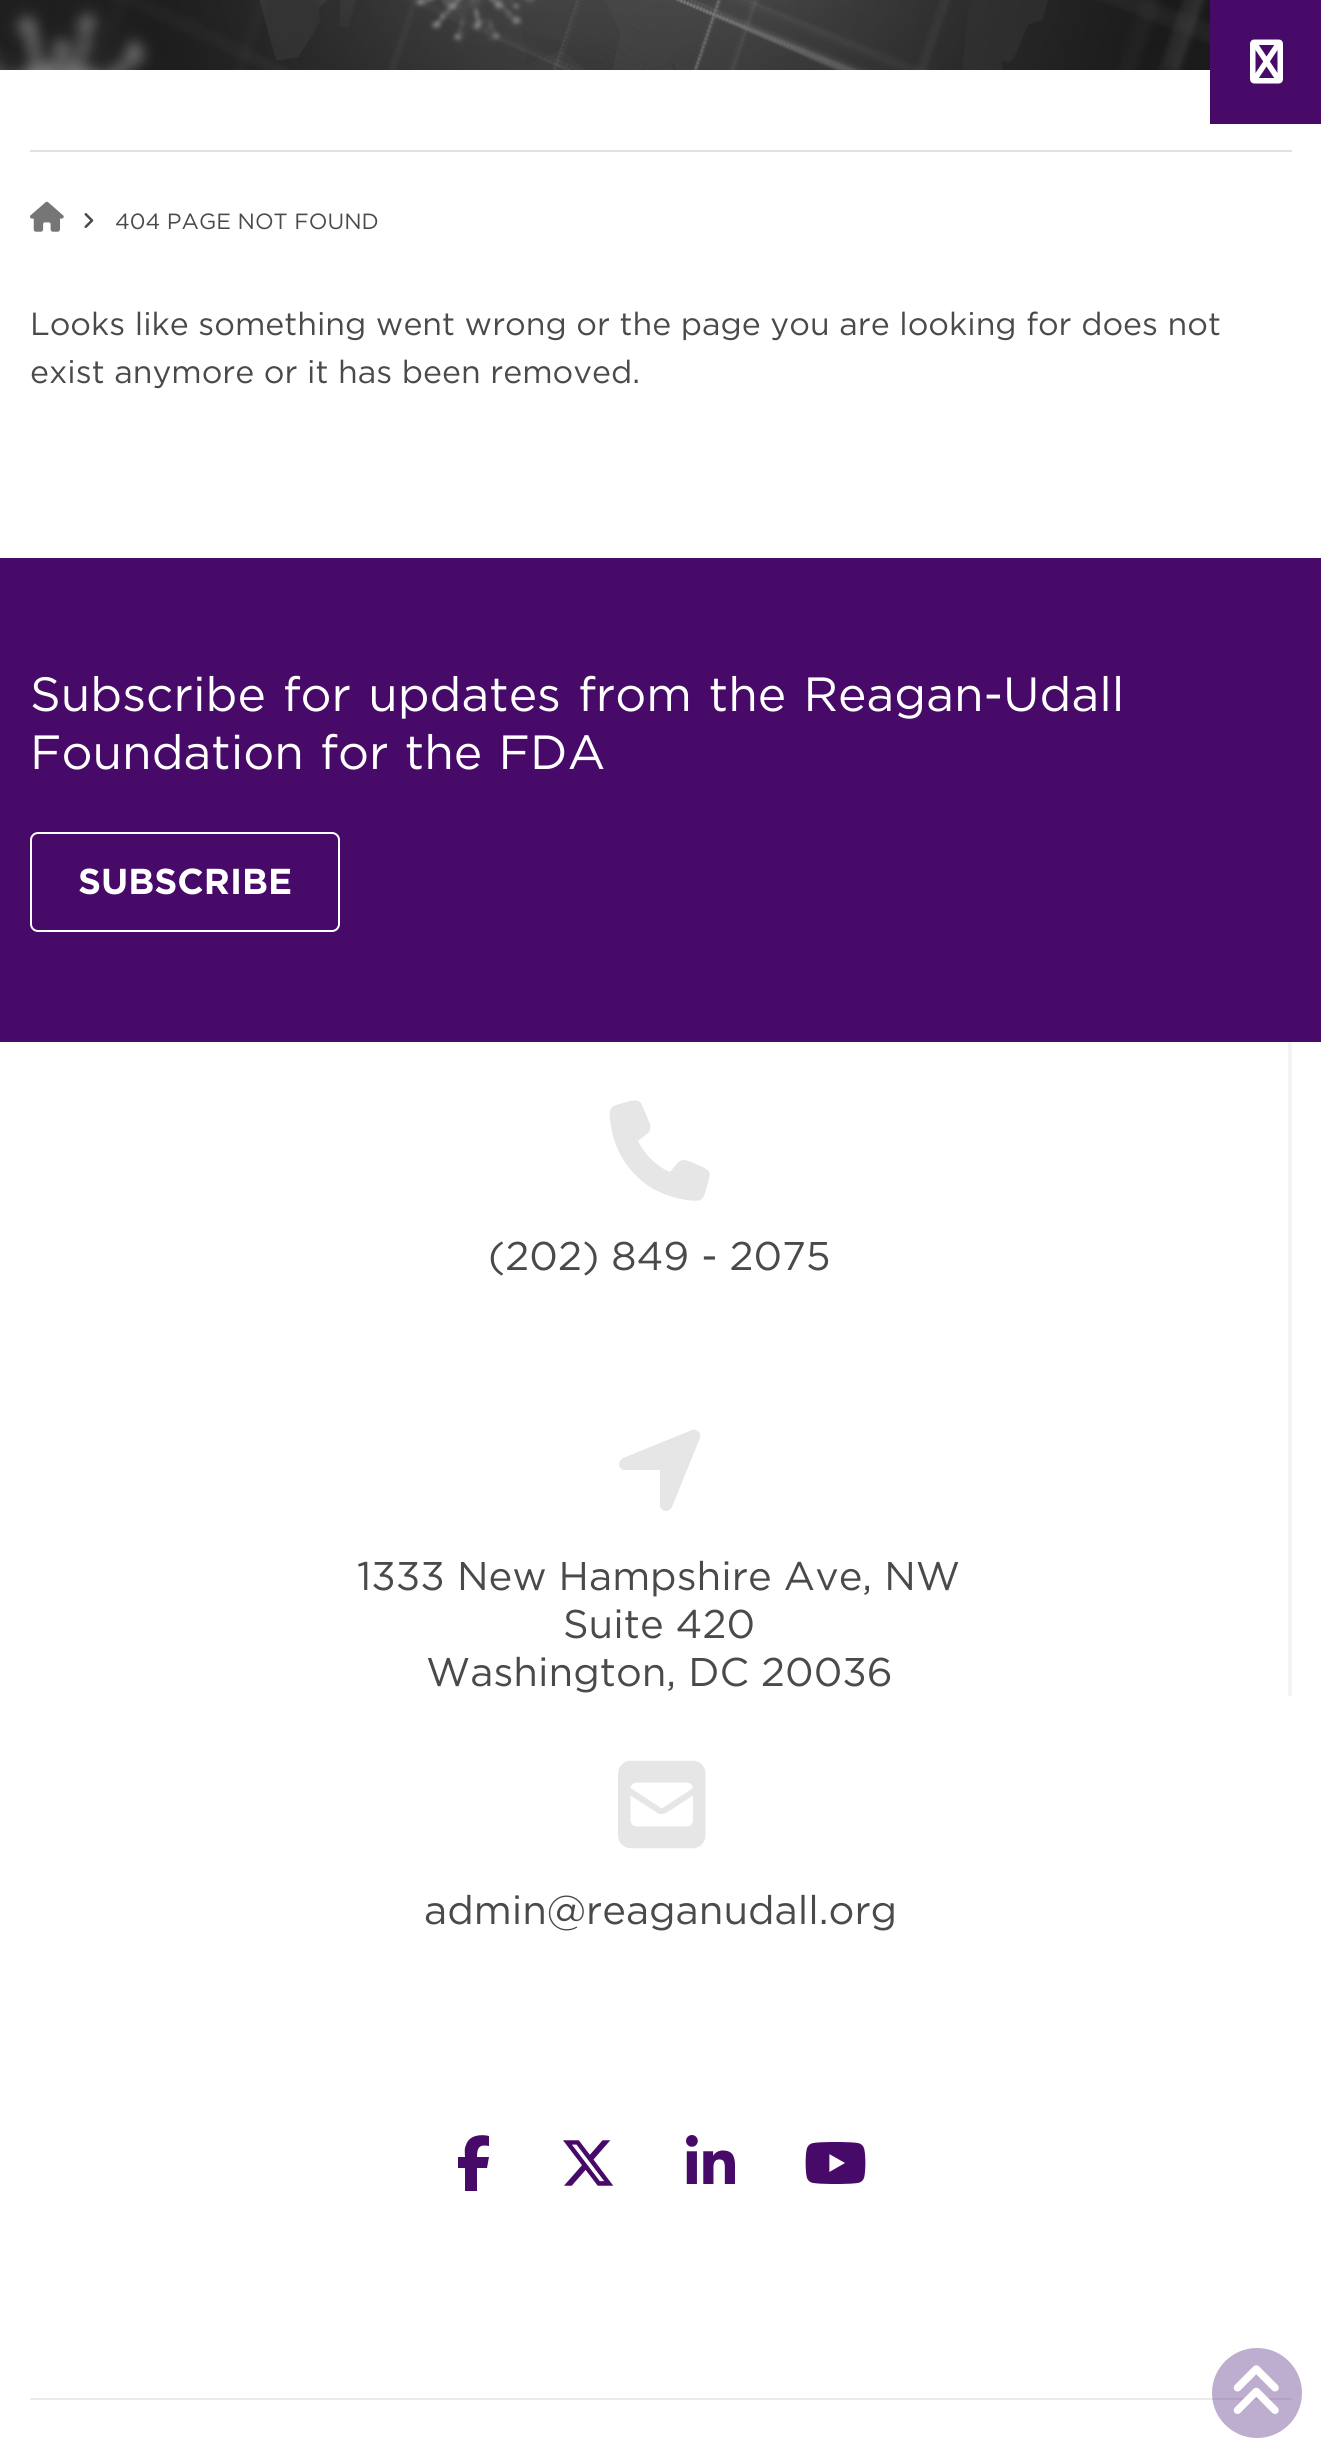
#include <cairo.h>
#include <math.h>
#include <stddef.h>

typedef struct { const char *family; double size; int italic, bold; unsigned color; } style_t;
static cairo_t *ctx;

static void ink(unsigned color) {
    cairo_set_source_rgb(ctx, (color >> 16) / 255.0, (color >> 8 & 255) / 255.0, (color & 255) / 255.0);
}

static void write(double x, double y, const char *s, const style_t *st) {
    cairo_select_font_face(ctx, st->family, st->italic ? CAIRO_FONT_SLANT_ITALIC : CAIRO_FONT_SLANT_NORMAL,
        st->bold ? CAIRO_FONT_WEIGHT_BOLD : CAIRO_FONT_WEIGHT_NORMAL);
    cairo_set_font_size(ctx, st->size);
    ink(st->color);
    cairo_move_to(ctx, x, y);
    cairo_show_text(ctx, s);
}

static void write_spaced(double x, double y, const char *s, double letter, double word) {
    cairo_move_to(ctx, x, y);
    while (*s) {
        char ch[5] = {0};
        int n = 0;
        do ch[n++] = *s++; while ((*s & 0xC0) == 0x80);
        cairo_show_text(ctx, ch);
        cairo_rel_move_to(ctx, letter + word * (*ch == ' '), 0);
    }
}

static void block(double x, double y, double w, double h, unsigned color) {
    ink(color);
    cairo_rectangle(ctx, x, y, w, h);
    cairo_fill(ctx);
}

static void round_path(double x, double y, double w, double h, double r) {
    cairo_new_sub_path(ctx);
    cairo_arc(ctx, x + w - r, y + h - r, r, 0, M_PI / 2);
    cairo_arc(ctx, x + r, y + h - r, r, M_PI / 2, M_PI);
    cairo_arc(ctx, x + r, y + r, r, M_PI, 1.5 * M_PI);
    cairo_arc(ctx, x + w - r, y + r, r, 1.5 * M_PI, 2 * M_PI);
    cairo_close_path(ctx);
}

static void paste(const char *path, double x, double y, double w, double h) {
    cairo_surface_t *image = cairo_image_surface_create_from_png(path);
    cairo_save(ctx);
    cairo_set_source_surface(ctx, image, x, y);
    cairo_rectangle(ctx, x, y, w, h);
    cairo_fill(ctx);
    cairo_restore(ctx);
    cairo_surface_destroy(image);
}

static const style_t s1 = {"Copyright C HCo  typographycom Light", 22, 0, 0, 0x4a4a4a};
static const style_t s2 = {"Copyright C HCo  typographycom Light", 32, 0, 0, 0x4a4a4a};
static const style_t s3 = {"Copyright C HCo  typographycom", 36, 0, 0, 0xffffff};
static const style_t s4 = {"Copyright C HCo  typographycom Light", 40, 0, 0, 0x4a4a4a};

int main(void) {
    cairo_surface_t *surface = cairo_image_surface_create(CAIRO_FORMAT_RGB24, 1321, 2457);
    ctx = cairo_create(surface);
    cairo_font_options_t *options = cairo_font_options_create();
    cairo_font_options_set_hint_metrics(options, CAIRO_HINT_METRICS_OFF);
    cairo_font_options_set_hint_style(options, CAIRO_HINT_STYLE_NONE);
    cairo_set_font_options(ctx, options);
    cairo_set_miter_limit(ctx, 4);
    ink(0xffffff);
    cairo_paint(ctx);
    block(1210, 0, 111, 124, 0x470a68);
    paste("pic1.png", 1250, 39, 33, 45);
    paste("pic2.png", 0, 0, 1210, 70);
    block(30, 150, 1262, 2, 0xe1e1e1);
    paste("pic3.png", 30, 201, 34, 31);
    paste("pic4.png", 84, 213, 10, 15);
    write(115, 229, "404 PAGE NOT FOUND", &s1);
    write(30, 335, "Looks like something went wrong or the page you are looking for does not", &s2);
    write(30, 383, "exist anymore or it has been removed.", &s2);
    block(0, 558, 1321, 484, 0x470a68);
    cairo_set_font_size(ctx, 48);
    ink(0xffffff);
    write_spaced(30, 711, "Subscribe for updates from the Reagan-Udall", 0, 2.75);
    write_spaced(30, 769, "Foundation for the FDA", 0, 2);
    round_path(31, 833, 308, 98, 7);
    cairo_stroke(ctx);
    write(78, 894, "SUBSCRIBE", &s3);
    block(1288, 1042, 4, 654, 0xf2f4f6);
    ink(0xe6e6e6);
    cairo_new_path(ctx);
    cairo_move_to(ctx, 642, 1105);
    cairo_curve_to(ctx, 640, 1100, 635, 1100, 630, 1101);
    cairo_curve_to(ctx, 625, 1103, 616, 1104, 612, 1107);
    cairo_curve_to(ctx, 608, 1112, 610, 1120, 611, 1125);
    cairo_curve_to(ctx, 614, 1151, 630, 1175, 653, 1189);
    cairo_curve_to(ctx, 663, 1194, 674, 1198, 686, 1200);
    cairo_curve_to(ctx, 703, 1202, 703, 1201, 707, 1186);
    cairo_curve_to(ctx, 712, 1170, 711, 1171, 696, 1164);
    cairo_curve_to(ctx, 679, 1157, 681, 1159, 670, 1172);
    cairo_curve_to(ctx, 656, 1166, 645, 1155, 638, 1141);
    cairo_line_to(ctx, 648, 1133);
    cairo_curve_to(ctx, 650, 1131, 651, 1128, 650, 1124);
    cairo_close_path(ctx);
    cairo_fill(ctx);
    write(488, 1270, "(202) 849 - 2075", &s4);
    ink(0xe6e6e6);
    cairo_new_path(ctx);
    cairo_move_to(ctx, 700, 1438);
    cairo_curve_to(ctx, 701, 1436, 700, 1434, 699, 1432);
    cairo_curve_to(ctx, 697, 1430, 694, 1429, 692, 1430);
    cairo_line_to(ctx, 623, 1458);
    cairo_curve_to(ctx, 620, 1460, 619, 1462, 619, 1465);
    cairo_curve_to(ctx, 620, 1469, 622, 1470, 625, 1470);
    cairo_line_to(ctx, 660, 1470);
    cairo_line_to(ctx, 660, 1505);
    cairo_curve_to(ctx, 660, 1508, 662, 1510, 665, 1511);
    cairo_curve_to(ctx, 668, 1511, 670, 1510, 672, 1507);
    cairo_close_path(ctx);
    cairo_fill(ctx);
    write(357, 1590, "1333 New Hampshire Ave, NW", &s4);
    write(563, 1638, "Suite 420", &s4);
    write(426, 1686, "Washington, DC 20036", &s4);
    paste("pic5.png", 618, 1760, 88, 89);
    write(424, 1924, "admin@reaganudall.org", &s4);
    ink(0x470a68);
    cairo_new_path(ctx);
    cairo_move_to(ctx, 465, 2168);
    cairo_line_to(ctx, 465, 2191);
    cairo_line_to(ctx, 465, 2168);
    cairo_line_to(ctx, 465, 2191);
    cairo_line_to(ctx, 477, 2191);
    cairo_line_to(ctx, 477, 2168);
    cairo_line_to(ctx, 487, 2168);
    cairo_line_to(ctx, 489, 2157);
    cairo_line_to(ctx, 477, 2157);
    cairo_curve_to(ctx, 477, 2148, 479, 2144, 489, 2146);
    cairo_line_to(ctx, 489, 2136);
    cairo_curve_to(ctx, 481, 2134, 469, 2135, 466, 2145);
    cairo_curve_to(ctx, 464, 2149, 465, 2153, 465, 2157);
    cairo_line_to(ctx, 458, 2157);
    cairo_line_to(ctx, 458, 2168);
    cairo_close_path(ctx);
    cairo_fill(ctx);
    paste("pic6.png", 563, 2140, 51, 46);
    paste("pic7.png", 686, 2135, 49, 49);
    paste("pic8.png", 805, 2142, 61, 42);
    block(30, 2398, 1262, 2, 0xebebeb);
    cairo_set_source_rgba(ctx, 0.357, 0.204, 0.533, 0.4);
    cairo_arc(ctx, 1257, 2393, 45, 0, 2 * M_PI);
    cairo_fill(ctx);
    paste("pic9.png", 1233, 2365, 46, 49);
    cairo_surface_write_to_png(surface, "screenshot.png");
    cairo_font_options_destroy(options);
    cairo_destroy(ctx);
    cairo_surface_destroy(surface);
    return 0;
}
